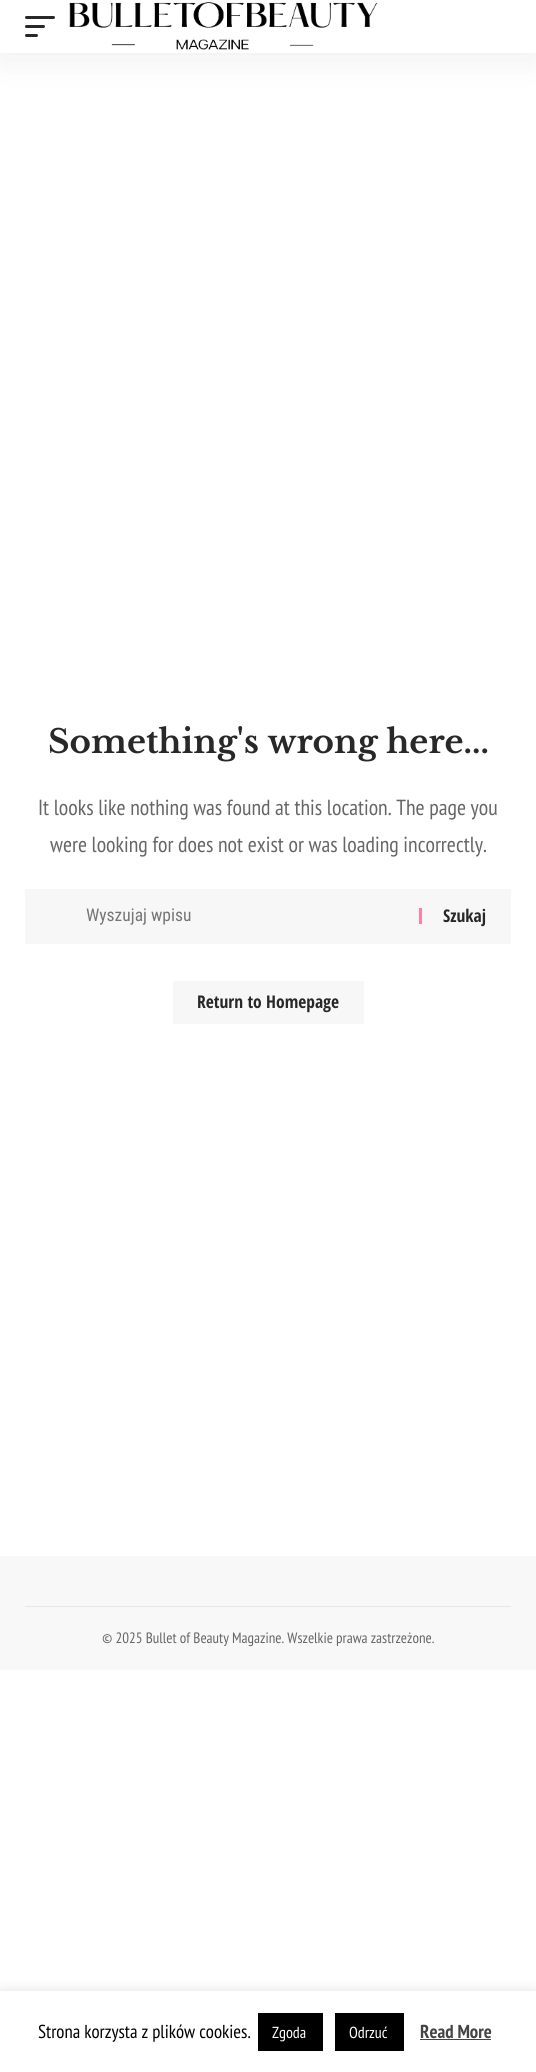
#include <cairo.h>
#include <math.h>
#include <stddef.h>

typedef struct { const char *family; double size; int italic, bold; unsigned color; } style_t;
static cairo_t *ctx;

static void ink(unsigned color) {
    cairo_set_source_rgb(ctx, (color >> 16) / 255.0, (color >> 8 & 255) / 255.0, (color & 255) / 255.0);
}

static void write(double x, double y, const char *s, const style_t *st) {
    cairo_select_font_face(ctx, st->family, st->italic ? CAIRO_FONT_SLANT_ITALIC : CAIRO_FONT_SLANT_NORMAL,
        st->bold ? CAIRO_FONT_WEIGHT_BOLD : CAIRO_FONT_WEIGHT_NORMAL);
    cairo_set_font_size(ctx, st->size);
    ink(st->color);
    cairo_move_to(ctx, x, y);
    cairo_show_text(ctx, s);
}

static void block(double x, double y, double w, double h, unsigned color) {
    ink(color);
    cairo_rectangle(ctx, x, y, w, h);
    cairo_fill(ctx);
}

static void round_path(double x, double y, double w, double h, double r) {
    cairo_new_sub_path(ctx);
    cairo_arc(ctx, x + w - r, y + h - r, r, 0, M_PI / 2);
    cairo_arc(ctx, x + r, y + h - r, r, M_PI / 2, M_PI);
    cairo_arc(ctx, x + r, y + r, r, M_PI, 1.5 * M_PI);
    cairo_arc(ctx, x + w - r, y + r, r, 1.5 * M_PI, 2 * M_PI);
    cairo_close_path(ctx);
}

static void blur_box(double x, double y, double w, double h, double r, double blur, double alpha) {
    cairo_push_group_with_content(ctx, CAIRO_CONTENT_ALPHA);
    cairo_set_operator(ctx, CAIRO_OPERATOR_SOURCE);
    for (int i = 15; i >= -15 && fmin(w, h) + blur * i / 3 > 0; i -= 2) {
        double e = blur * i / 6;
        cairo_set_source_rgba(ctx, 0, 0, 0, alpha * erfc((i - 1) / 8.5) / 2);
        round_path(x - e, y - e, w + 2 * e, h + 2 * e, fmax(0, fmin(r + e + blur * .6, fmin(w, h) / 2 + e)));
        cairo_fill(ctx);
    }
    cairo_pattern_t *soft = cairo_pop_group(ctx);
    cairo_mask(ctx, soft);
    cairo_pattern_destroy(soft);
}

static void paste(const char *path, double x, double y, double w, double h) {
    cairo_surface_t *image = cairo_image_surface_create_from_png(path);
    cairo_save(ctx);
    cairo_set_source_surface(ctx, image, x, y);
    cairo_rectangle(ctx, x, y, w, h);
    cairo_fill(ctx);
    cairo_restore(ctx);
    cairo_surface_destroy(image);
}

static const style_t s1 = {"Libre Baskerville", 32.5, 0, 1, 0x282828};
static const style_t s2 = {"PT Sans Narrow", 21.85, 0, 0, 0x666666};
static const style_t s3 = {"Roboto Condensed", 17.5, 0, 0, 0x757575};
static const style_t s4 = {"Open Sans Condensed", 17.5, 0, 1, 0x282828};
static const style_t s5 = {"PT Sans Narrow", 15, 0, 0, 0x666666};
static const style_t s6 = {"PT Sans Narrow", 18.75, 0, 0, 0x000000};
static const style_t s7 = {"PT Sans Narrow", 16, 0, 0, 0xffffff};
static const style_t s8 = {"PT Sans Narrow", 18.75, 0, 1, 0x444444};

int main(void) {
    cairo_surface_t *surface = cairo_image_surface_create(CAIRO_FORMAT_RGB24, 536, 2072);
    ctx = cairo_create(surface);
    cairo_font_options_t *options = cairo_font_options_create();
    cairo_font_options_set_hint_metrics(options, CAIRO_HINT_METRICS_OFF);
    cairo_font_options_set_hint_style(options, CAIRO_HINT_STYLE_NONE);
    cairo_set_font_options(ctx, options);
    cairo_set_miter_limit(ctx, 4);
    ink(0xffffff);
    cairo_paint(ctx);
    ink(0x000000);
    blur_box(0, 5, 536, 53, 0, 19, 0.07);
    block(0, 0, 536, 53, 0xffffff);
    ink(0x282828);
    round_path(25, 16, 30, 3, 1.5);
    cairo_fill(ctx);
    round_path(25, 25, 20, 3, 1.5);
    cairo_fill(ctx);
    round_path(25, 34, 13, 3, 1.5);
    cairo_fill(ctx);
    paste("pic1.png", 69, 2, 309, 48);
    write(48, 753, "Something's wrong here...", &s1);
    write(38, 815, "It looks like nothing was found at this location. The page you", &s2);
    write(50, 852, "were looking for does not exist or was loading incorrectly.", &s2);
    block(25, 889, 486, 55, 0xf7f7f7);
    write(86, 921, "Wyszujaj wpisu", &s3);
    block(419, 908, 3, 16, 0xff819e);
    write(443, 922, "Szukaj", &s4);
    block(173, 981, 191, 43, 0xf7f7f7);
    write(197, 1008, "Return to Homepage", &s4);
    block(0, 1556, 536, 114, 0xf8f8f8);
    block(25, 1606, 486, 1, 0xe7e7e7);
    write(102, 1643, "© 2025 Bullet of Beauty Magazine. Wszelkie prawa zastrzeżone.", &s5);
    ink(0xacabab);
    blur_box(0, 1990, 536, 81, 0, 6, 0.3);
    block(0, 1991, 536, 81, 0xffffff);
    write(38, 2038, "Strona korzysta z plików cookies.", &s6);
    block(258, 2013, 65, 38, 0x000000);
    write(272, 2038, "Zgoda", &s7);
    block(335, 2013, 69, 38, 0x000000);
    write(349, 2038, "Odrzuć", &s7);
    write(420, 2038, "Read More", &s8);
    block(420, 2039, 71, 1, 0x444444);
    cairo_surface_write_to_png(surface, "screenshot.png");
    cairo_font_options_destroy(options);
    cairo_destroy(ctx);
    cairo_surface_destroy(surface);
    return 0;
}
